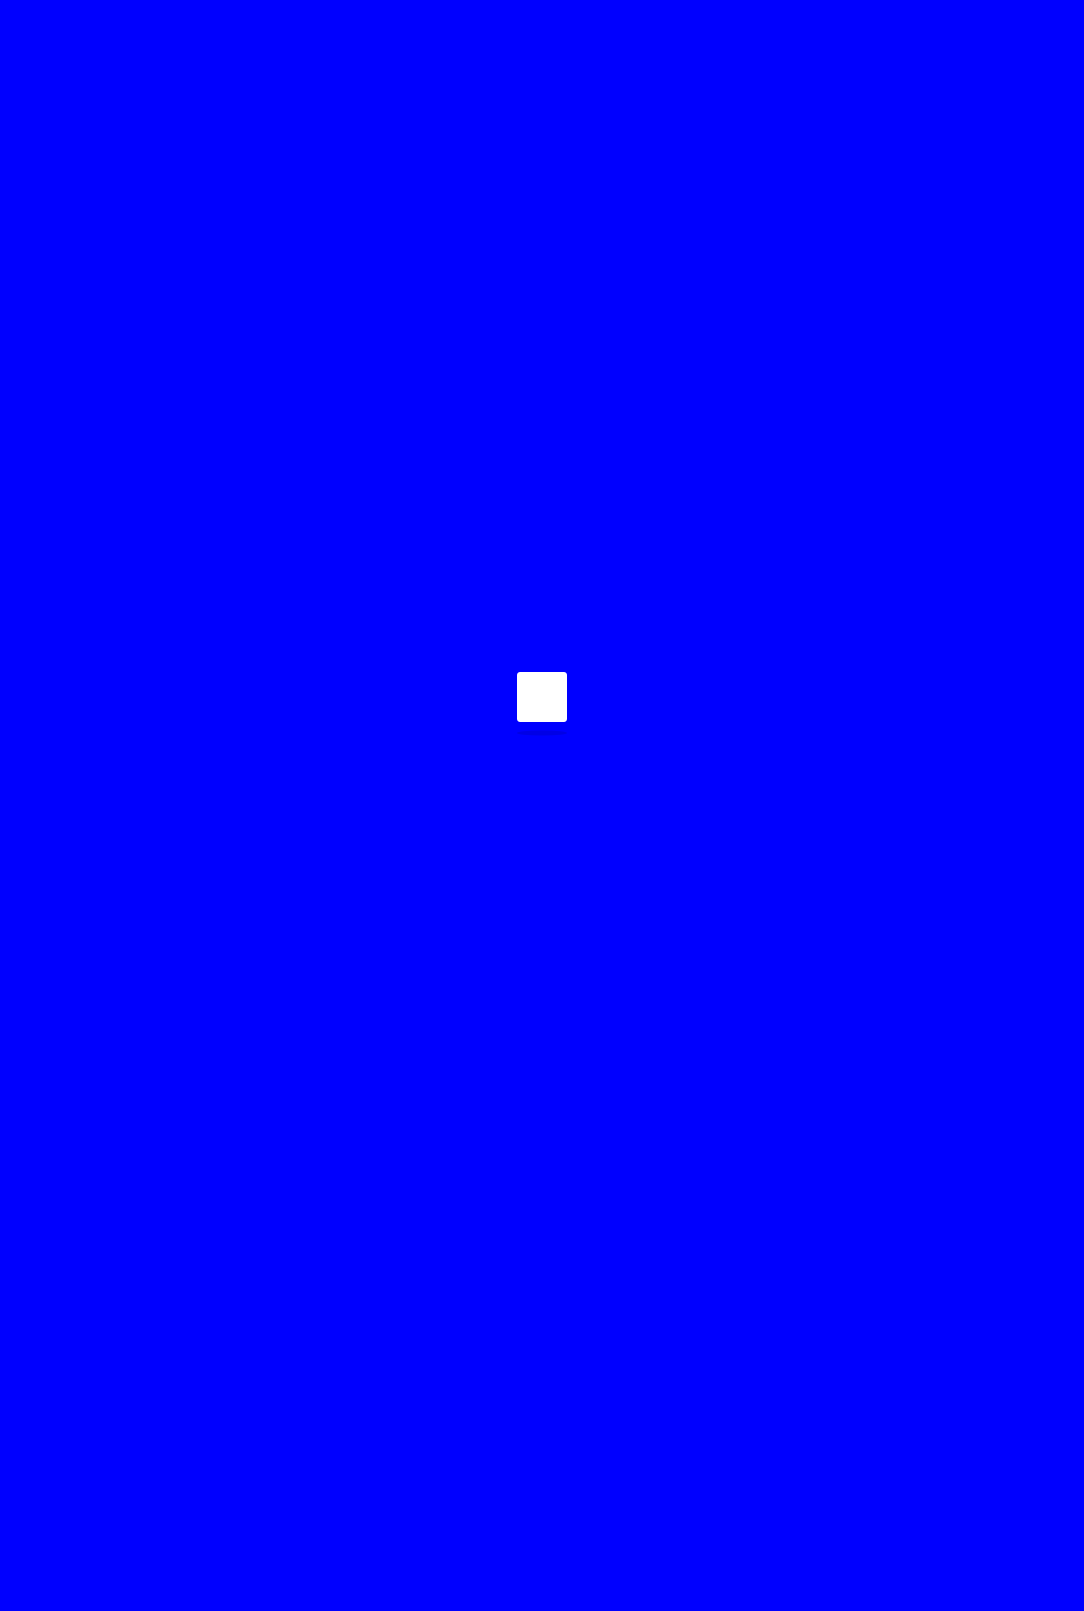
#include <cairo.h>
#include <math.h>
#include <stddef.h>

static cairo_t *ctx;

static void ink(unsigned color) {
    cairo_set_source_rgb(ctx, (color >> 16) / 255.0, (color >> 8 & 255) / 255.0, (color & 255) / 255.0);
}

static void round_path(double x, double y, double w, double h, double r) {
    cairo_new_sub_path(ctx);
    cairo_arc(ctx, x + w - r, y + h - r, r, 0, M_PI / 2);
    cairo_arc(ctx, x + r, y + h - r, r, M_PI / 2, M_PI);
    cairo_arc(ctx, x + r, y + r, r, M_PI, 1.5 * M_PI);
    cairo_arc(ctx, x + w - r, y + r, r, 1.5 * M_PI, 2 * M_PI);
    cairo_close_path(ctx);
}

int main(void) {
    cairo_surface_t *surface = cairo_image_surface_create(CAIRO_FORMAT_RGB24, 1084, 1611);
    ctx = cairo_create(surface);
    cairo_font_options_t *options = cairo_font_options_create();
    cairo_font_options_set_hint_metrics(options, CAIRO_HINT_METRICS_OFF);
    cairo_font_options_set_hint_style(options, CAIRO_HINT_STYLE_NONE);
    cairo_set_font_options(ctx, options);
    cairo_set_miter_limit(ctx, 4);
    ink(0x0000ff);
    cairo_paint(ctx);
    ink(0xffffff);
    round_path(517, 672, 50, 50, 3);
    cairo_fill(ctx);
    ink(0x0000e6);
    cairo_new_path(ctx);
    cairo_move_to(ctx, 542, 730.5);
    cairo_curve_to(ctx, 556, 730.5, 567, 731.5, 567, 733);
    cairo_curve_to(ctx, 567, 734.5, 556, 735.5, 542, 735.5);
    cairo_curve_to(ctx, 528, 735.5, 517, 734.5, 517, 733);
    cairo_curve_to(ctx, 517, 731.5, 528, 730.5, 542, 730.5);
    cairo_close_path(ctx);
    cairo_fill(ctx);
    cairo_surface_write_to_png(surface, "screenshot.png");
    cairo_font_options_destroy(options);
    cairo_destroy(ctx);
    cairo_surface_destroy(surface);
    return 0;
}
